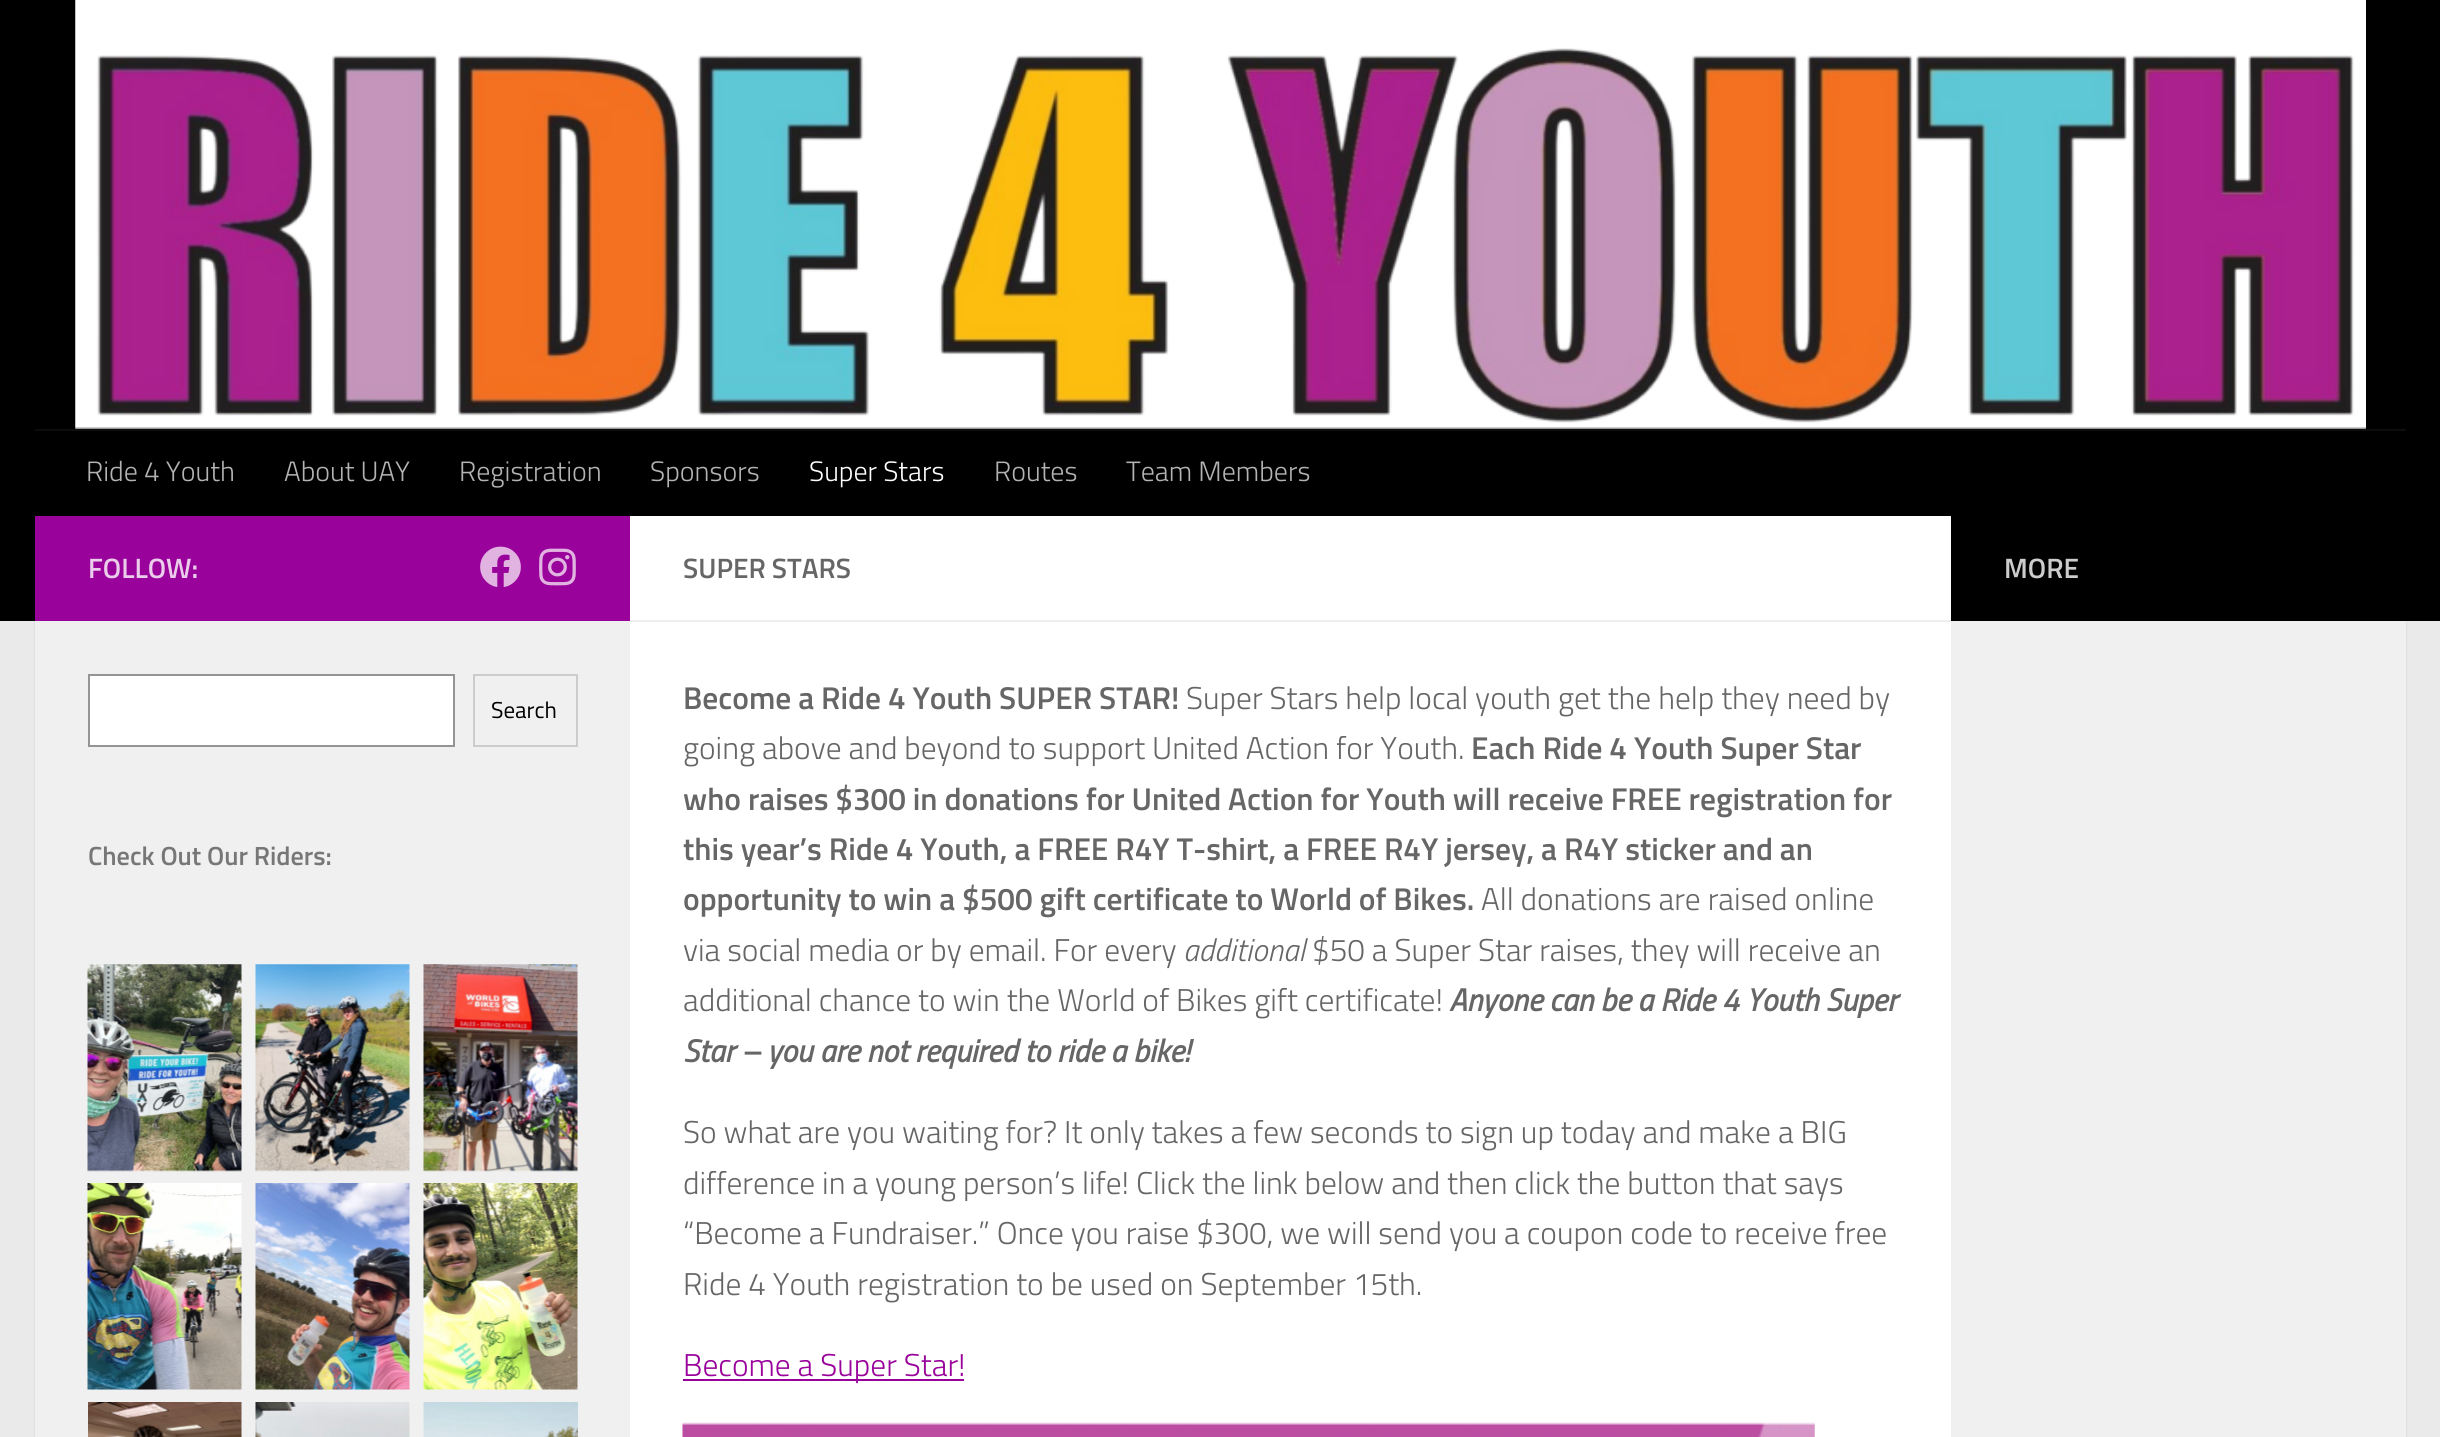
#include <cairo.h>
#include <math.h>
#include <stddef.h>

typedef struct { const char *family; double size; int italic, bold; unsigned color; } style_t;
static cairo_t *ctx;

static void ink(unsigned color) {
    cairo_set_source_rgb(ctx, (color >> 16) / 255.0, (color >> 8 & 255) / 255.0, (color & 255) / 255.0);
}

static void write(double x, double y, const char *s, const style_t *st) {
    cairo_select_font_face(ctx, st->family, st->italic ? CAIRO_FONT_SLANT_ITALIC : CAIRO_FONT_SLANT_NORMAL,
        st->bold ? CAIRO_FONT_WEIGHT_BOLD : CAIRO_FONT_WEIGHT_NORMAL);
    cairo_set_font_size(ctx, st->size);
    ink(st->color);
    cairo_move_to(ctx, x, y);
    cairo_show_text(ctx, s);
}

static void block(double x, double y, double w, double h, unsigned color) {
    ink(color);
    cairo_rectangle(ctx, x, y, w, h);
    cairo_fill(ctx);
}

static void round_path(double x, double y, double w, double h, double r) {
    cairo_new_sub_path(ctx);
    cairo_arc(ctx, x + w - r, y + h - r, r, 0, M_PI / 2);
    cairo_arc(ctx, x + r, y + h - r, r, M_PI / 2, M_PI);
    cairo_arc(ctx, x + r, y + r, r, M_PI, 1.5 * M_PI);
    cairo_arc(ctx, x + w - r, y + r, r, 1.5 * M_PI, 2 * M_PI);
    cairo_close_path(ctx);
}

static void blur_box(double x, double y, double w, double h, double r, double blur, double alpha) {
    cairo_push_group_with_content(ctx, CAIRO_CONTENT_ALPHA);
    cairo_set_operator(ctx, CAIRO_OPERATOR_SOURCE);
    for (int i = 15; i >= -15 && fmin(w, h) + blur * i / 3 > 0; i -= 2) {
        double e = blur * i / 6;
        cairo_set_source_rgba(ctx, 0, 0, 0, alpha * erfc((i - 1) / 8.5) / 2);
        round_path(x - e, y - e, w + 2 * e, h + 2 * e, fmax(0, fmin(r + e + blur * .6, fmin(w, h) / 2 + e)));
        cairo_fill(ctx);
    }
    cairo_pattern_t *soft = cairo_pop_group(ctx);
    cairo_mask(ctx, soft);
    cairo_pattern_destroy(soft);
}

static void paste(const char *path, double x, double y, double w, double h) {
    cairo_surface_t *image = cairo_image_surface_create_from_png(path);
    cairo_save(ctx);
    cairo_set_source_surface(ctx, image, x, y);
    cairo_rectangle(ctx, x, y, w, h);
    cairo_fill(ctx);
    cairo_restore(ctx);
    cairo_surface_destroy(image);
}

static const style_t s1 = {"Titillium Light", 28, 0, 0, 0xb3b3b3};
static const style_t s2 = {"Titillium Light", 28, 0, 0, 0xffffff};
static const style_t s3 = {"Titillium SemiBold", 28, 0, 0, 0xebcdeb};
static const style_t s4 = {"Titillium", 23, 0, 0, 0x000000};
static const style_t s5 = {"Titillium SemiBold", 26.25, 0, 0, 0x777777};
static const style_t s6 = {"Titillium SemiBold", 28, 0, 0, 0x666666};
static const style_t s7 = {"Titillium SemiBold", 31.5, 0, 0, 0x666666};
static const style_t s8 = {"Titillium Light", 31.5, 0, 0, 0x666666};
static const style_t s9 = {"Titillium Light", 31.5, 1, 0, 0x666666};
static const style_t s10 = {"Titillium", 31.5, 1, 1, 0x666666};
static const style_t s11 = {"Titillium Light", 31.5, 0, 0, 0x99039b};
static const style_t s12 = {"Titillium SemiBold", 28, 0, 0, 0xcccccc};

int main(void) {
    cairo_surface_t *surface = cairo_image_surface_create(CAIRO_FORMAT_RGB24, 2440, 1437);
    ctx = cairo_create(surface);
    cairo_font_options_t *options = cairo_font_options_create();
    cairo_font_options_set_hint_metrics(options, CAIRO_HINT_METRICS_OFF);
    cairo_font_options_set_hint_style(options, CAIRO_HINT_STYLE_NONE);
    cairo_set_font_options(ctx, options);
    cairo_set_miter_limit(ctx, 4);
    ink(0xeaeaea);
    cairo_paint(ctx);
    ink(0x000000);
    blur_box(35, 518, 2371, 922, 0, 1, 0.1);
    block(0, 0, 2440, 621, 0x000000);
    paste("pic1.png", 75, 0, 2291, 429);
    cairo_set_source_rgba(ctx, 0, 0, 0, 0.2);
    cairo_rectangle(ctx, 75, 427, 2291, 2);
    cairo_fill(ctx);
    block(35, 429, 2371, 2, 0x0d0d0d);
    write(86, 481, "Ride 4 Youth", &s1);
    write(284, 481, "About UAY", &s1);
    write(459, 481, "Registration", &s1);
    write(650, 481, "Sponsors", &s1);
    write(809, 481, "Super Stars", &s2);
    write(994, 481, "Routes", &s1);
    write(1126, 481, "Team Members", &s1);
    block(630, 516, 1321, 921, 0xffffff);
    block(35, 516, 595, 105, 0x99039b);
    write(88, 578, "FOLLOW:", &s3);
    paste("pic2.png", 480, 546, 41, 41);
    paste("pic3.png", 539, 548, 37, 38);
    block(35, 621, 595, 816, 0xf0f0f0);
    ink(0xffffff);
    cairo_rectangle(ctx, 89, 675, 365, 71);
    cairo_fill_preserve(ctx);
    ink(0x949494);
    cairo_stroke(ctx);
    cairo_rectangle(ctx, 474, 675, 103, 71);
    ink(0xcccccc);
    cairo_stroke(ctx);
    write(491, 718, "Search", &s4);
    write(88, 865, "Check Out Our Riders:", &s5);
    paste("pic4.png", 87, 964, 155, 208);
    paste("pic5.png", 255, 964, 155, 208);
    paste("pic6.png", 423, 964, 155, 208);
    paste("pic7.png", 87, 1183, 155, 207);
    paste("pic8.png", 255, 1183, 155, 207);
    paste("pic9.png", 423, 1183, 155, 207);
    paste("pic10.png", 88, 1402, 154, 35);
    paste("pic11.png", 255, 1402, 155, 35);
    paste("pic12.png", 423, 1402, 155, 35);
    block(630, 620, 1321, 2, 0xeeeeee);
    write(683, 578, "SUPER STARS", &s6);
    write(683, 709, "Become a Ride 4 Youth SUPER STAR!", &s7);
    write(1186, 709, "Super Stars help local youth get the help they need by", &s8);
    write(683, 759, "going above and beyond to support United Action for Youth.", &s8);
    write(1471, 759, "Each Ride 4 Youth Super Star", &s7);
    write(683, 810, "who raises $300 in donations for United Action for Youth will receive FREE registration for", &s7);
    write(683, 860, "this year’s Ride 4 Youth, a FREE R4Y T-shirt, a FREE R4Y jersey, a R4Y sticker and an", &s7);
    write(683, 910, "opportunity to win a $500 gift certificate to World of Bikes.", &s7);
    write(1481, 910, "All donations are raised online", &s8);
    write(683, 961, "via social media or by email. For every", &s8);
    write(1183, 961, "additional", &s9);
    write(1312, 961, "$50 a Super Star raises, they will receive an", &s8);
    write(683, 1011, "additional chance to win the World of Bikes gift certificate!", &s8);
    write(1449, 1011, "Anyone can be a Ride 4 Youth Super", &s10);
    write(683, 1062, "Star – you are not required to ride a bike!", &s10);
    write(683, 1143, "So what are you waiting for? It only takes a few seconds to sign up today and make a BIG", &s8);
    write(683, 1194, "difference in a young person’s life! Click the link below and then click the button that says", &s8);
    write(683, 1244, "“Become a Fundraiser.” Once you raise $300, we will send you a coupon code to receive free", &s8);
    write(683, 1295, "Ride 4 Youth registration to be used on September 15th.", &s8);
    block(683, 1379, 281, 2, 0x99039b);
    write(683, 1376, "Become a Super Star!", &s11);
    paste("pic13.png", 682, 1422, 1133, 15);
    write(2004, 578, "MORE", &s12);
    block(1951, 621, 455, 816, 0xf0f0f0);
    cairo_surface_write_to_png(surface, "screenshot.png");
    cairo_font_options_destroy(options);
    cairo_destroy(ctx);
    cairo_surface_destroy(surface);
    return 0;
}
